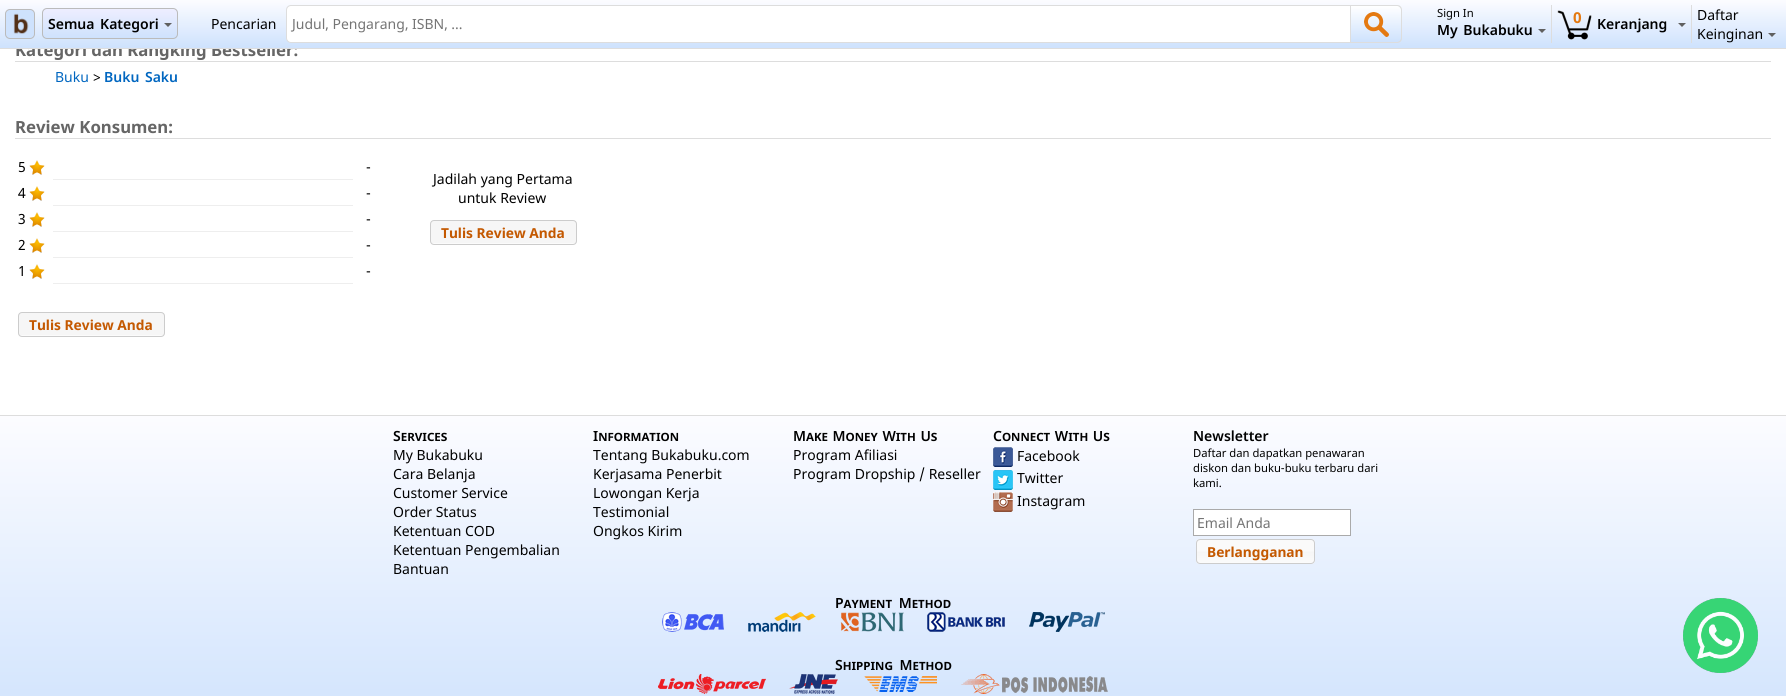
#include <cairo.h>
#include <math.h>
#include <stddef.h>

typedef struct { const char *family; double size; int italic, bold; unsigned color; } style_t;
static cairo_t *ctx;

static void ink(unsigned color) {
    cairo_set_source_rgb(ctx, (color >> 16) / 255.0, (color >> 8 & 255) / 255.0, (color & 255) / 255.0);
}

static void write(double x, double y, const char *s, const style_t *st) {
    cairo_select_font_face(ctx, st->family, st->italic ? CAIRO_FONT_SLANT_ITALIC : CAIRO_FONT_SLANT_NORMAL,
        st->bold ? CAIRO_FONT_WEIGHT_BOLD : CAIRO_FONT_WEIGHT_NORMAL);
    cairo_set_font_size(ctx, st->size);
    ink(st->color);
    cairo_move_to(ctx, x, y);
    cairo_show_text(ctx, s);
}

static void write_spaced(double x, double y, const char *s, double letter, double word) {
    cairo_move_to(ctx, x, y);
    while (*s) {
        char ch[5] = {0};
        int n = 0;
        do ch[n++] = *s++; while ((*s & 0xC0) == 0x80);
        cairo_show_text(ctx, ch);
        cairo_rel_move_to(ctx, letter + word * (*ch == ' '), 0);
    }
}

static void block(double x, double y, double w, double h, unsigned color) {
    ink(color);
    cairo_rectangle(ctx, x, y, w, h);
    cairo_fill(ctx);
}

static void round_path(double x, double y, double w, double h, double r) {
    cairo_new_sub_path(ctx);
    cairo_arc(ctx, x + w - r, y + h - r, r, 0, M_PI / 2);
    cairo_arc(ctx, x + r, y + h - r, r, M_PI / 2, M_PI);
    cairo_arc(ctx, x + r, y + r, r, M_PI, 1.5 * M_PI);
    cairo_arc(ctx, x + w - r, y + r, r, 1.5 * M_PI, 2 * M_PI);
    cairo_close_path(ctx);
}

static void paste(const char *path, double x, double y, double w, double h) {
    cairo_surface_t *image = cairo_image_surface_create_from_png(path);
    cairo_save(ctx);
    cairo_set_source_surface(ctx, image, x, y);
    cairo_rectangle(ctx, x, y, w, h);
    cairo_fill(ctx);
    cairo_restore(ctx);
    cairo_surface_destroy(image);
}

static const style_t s1 = {"Noto Sans", 16.75, 0, 1, 0x666666};
static const style_t s2 = {"Noto Sans", 14, 0, 0, 0x000000};
static const style_t s3 = {"Noto Sans", 14, 0, 0, 0x757575};
static const style_t s4 = {"Noto Sans", 11.25, 0, 0, 0x000000};
static const style_t s5 = {"Noto Sans", 15, 0, 1, 0xe47911};
static const style_t s6 = {"Noto Sans SemiBold", 14, 0, 0, 0x000000};
static const style_t s7 = {"Noto Sans", 14, 0, 0, 0x0066c0};
static const style_t s8 = {"Noto Sans", 13.75, 0, 1, 0xc45901};
static const style_t s9 = {"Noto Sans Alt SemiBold", 14, 0, 0, 0x000000};

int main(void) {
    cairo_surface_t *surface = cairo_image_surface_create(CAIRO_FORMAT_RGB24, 1786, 696);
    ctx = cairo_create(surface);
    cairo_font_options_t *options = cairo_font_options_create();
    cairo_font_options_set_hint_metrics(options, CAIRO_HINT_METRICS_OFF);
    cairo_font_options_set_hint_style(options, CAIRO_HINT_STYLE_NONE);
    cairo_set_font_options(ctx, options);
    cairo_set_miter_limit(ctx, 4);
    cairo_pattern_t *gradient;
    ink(0xffffff);
    cairo_paint(ctx);
    write(15, 56, "Kategori dan Rangking Bestseller:", &s1);
    gradient = cairo_pattern_create_linear(893, 0, 893, 48);
    cairo_pattern_add_color_stop_rgba(gradient, 0, 0.988, 0.988, 1, 1);
    cairo_pattern_add_color_stop_rgba(gradient, 1, 0.808, 0.886, 0.992, 1);
    cairo_set_source(ctx, gradient);
    cairo_pattern_destroy(gradient);
    cairo_rectangle(ctx, 0, 0, 1786, 48);
    cairo_fill(ctx);
    block(0, 48, 1786, 1, 0xdddddd);
    ink(0xcee2fd);
    round_path(5.5, 9.5, 29, 29, 4.5);
    cairo_fill_preserve(ctx);
    ink(0xbbbbbb);
    cairo_set_line_width(ctx, 1);
    cairo_stroke(ctx);
    paste("pic1.png", 13, 13, 16, 21);
    cairo_save(ctx);
    round_path(42, 8, 136, 31, 5);
    cairo_clip(ctx);
    gradient = cairo_pattern_create_linear(110, 9, 110, 38);
    cairo_pattern_add_color_stop_rgba(gradient, 0, 0.933, 0.933, 1, 1);
    cairo_pattern_add_color_stop_rgba(gradient, 1, 0.808, 0.886, 0.992, 1);
    cairo_set_source(ctx, gradient);
    cairo_pattern_destroy(gradient);
    cairo_rectangle(ctx, 42, 9, 136, 29);
    cairo_fill(ctx);
    cairo_restore(ctx);
    round_path(42.5, 8.5, 135, 30, 4.5);
    cairo_stroke(ctx);
    cairo_select_font_face(ctx, "Noto Sans SemiBold", CAIRO_FONT_SLANT_NORMAL, CAIRO_FONT_WEIGHT_NORMAL);
    cairo_set_font_size(ctx, 14);
    ink(0x000000);
    write_spaced(48, 29, "Semua Kategori", 0, 2);
    ink(0x606060);
    cairo_new_path(ctx);
    cairo_move_to(ctx, 164, 23);
    cairo_line_to(ctx, 172, 23);
    cairo_line_to(ctx, 168, 27);
    cairo_close_path(ctx);
    cairo_fill(ctx);
    write(211, 29, "Pencarian", &s2);
    ink(0xffffff);
    cairo_new_path(ctx);
    cairo_move_to(ctx, 291, 5.5);
    cairo_line_to(ctx, 1350.5, 5.5);
    cairo_line_to(ctx, 1350.5, 42.5);
    cairo_line_to(ctx, 291, 42.5);
    cairo_curve_to(ctx, 288.5, 42.5, 286.5, 40.5, 286.5, 38);
    cairo_line_to(ctx, 286.5, 10);
    cairo_curve_to(ctx, 286.5, 7.5, 288.5, 5.5, 291, 5.5);
    cairo_close_path(ctx);
    cairo_fill_preserve(ctx);
    ink(0xdddddd);
    cairo_stroke(ctx);
    write(292, 29, "Judul, Pengarang, ISBN, ...", &s3);
    cairo_save(ctx);
    cairo_new_path(ctx);
    cairo_move_to(ctx, 1351, 5);
    cairo_line_to(ctx, 1397, 5);
    cairo_curve_to(ctx, 1400, 5, 1402, 7, 1402, 10);
    cairo_line_to(ctx, 1402, 38);
    cairo_curve_to(ctx, 1402, 41, 1400, 43, 1397, 43);
    cairo_line_to(ctx, 1351, 43);
    cairo_close_path(ctx);
    cairo_clip(ctx);
    gradient = cairo_pattern_create_linear(1376, 6, 1376, 42);
    cairo_pattern_add_color_stop_rgba(gradient, 0, 1, 1, 1, 1);
    cairo_pattern_add_color_stop_rgba(gradient, 1, 0.808, 0.886, 0.992, 1);
    cairo_set_source(ctx, gradient);
    cairo_pattern_destroy(gradient);
    cairo_rectangle(ctx, 1351, 6, 51, 36);
    cairo_fill(ctx);
    cairo_restore(ctx);
    ink(0xdddddd);
    cairo_set_fill_rule(ctx, CAIRO_FILL_RULE_EVEN_ODD);
    cairo_new_path(ctx);
    cairo_move_to(ctx, 1351, 5);
    cairo_line_to(ctx, 1397, 5);
    cairo_curve_to(ctx, 1400, 5, 1402, 7, 1402, 10);
    cairo_line_to(ctx, 1402, 38);
    cairo_curve_to(ctx, 1402, 41, 1400, 43, 1397, 43);
    cairo_line_to(ctx, 1351, 43);
    cairo_close_path(ctx);
    cairo_move_to(ctx, 1351, 6);
    cairo_line_to(ctx, 1397, 6);
    cairo_curve_to(ctx, 1399, 6, 1401, 8, 1401, 10);
    cairo_line_to(ctx, 1401, 38);
    cairo_curve_to(ctx, 1401, 40, 1399, 42, 1397, 42);
    cairo_line_to(ctx, 1351, 42);
    cairo_close_path(ctx);
    cairo_fill(ctx);
    paste("pic2.png", 1364, 12, 25, 25);
    block(1551, 5, 1, 38, 0xdddddd);
    write(1437, 17, "Sign In", &s4);
    cairo_select_font_face(ctx, "Noto Sans SemiBold", CAIRO_FONT_SLANT_NORMAL, CAIRO_FONT_WEIGHT_NORMAL);
    cairo_set_font_size(ctx, 14);
    write_spaced(1437, 35, "My Bukabuku", 0, 2);
    ink(0x606060);
    cairo_set_fill_rule(ctx, CAIRO_FILL_RULE_WINDING);
    cairo_new_path(ctx);
    cairo_move_to(ctx, 1538, 29);
    cairo_line_to(ctx, 1546, 29);
    cairo_line_to(ctx, 1542, 33);
    cairo_close_path(ctx);
    cairo_fill(ctx);
    block(1691, 5, 1, 38, 0xdddddd);
    paste("pic3.png", 1557, 10, 35, 30);
    write(1573, 23, "0", &s5);
    write(1597, 29, "Keranjang", &s6);
    ink(0x606060);
    cairo_new_path(ctx);
    cairo_move_to(ctx, 1678, 23);
    cairo_line_to(ctx, 1686, 23);
    cairo_line_to(ctx, 1682, 27);
    cairo_close_path(ctx);
    cairo_fill(ctx);
    write(1697, 20, "Daftar", &s2);
    write(1697, 39, "Keinginan", &s2);
    ink(0x606060);
    cairo_new_path(ctx);
    cairo_move_to(ctx, 1768, 33);
    cairo_line_to(ctx, 1776, 33);
    cairo_line_to(ctx, 1772, 37);
    cairo_close_path(ctx);
    cairo_fill(ctx);
    block(15, 61, 1756, 1, 0xdddddd);
    write(55, 82, "Buku", &s7);
    write(93, 82, ">", &s2);
    cairo_select_font_face(ctx, "Noto Sans SemiBold", CAIRO_FONT_SLANT_NORMAL, CAIRO_FONT_WEIGHT_NORMAL);
    ink(0x0066c0);
    write_spaced(104, 82, "Buku Saku", 0, 2);
    block(15, 138, 1756, 1, 0xdddddd);
    write(15, 133, "Review Konsumen:", &s1);
    write(18, 172, "5", &s2);
    paste("pic4.png", 29, 160, 16, 15);
    write(366, 172, "-", &s2);
    block(53, 179, 300, 1, 0xeeeeee);
    write(18, 198, "4", &s2);
    paste("pic4.png", 29, 186, 16, 15);
    write(366, 198, "-", &s2);
    block(53, 205, 300, 1, 0xeeeeee);
    write(18, 224, "3", &s2);
    paste("pic4.png", 29, 212, 16, 15);
    write(366, 224, "-", &s2);
    block(53, 231, 300, 1, 0xeeeeee);
    write(18, 250, "2", &s2);
    paste("pic4.png", 29, 238, 16, 15);
    write(366, 250, "-", &s2);
    block(53, 257, 300, 1, 0xeeeeee);
    write(18, 276, "1", &s2);
    paste("pic4.png", 29, 264, 16, 15);
    write(366, 276, "-", &s2);
    block(53, 283, 300, 1, 0xeeeeee);
    write(433, 184, "Jadilah yang Pertama", &s2);
    write(458, 203, "untuk Review", &s2);
    ink(0xf6f6f6);
    round_path(430, 220, 147, 25, 4);
    cairo_fill(ctx);
    paste("pic5.png", 431, 243, 145, 2);
    round_path(430.5, 220.5, 146, 24, 3.5);
    ink(0xcccccc);
    cairo_stroke(ctx);
    write(441, 238, "Tulis Review Anda", &s8);
    ink(0xf6f6f6);
    round_path(18, 312, 147, 25, 4);
    cairo_fill(ctx);
    paste("pic5.png", 19, 335, 145, 2);
    round_path(18.5, 312.5, 146, 24, 3.5);
    ink(0xcccccc);
    cairo_stroke(ctx);
    write(29, 330, "Tulis Review Anda", &s8);
    gradient = cairo_pattern_create_linear(893, 416, 893, 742);
    cairo_pattern_add_color_stop_rgba(gradient, 0, 0.988, 0.988, 1, 1);
    cairo_pattern_add_color_stop_rgba(gradient, 1, 0.808, 0.886, 0.992, 1);
    cairo_set_source(ctx, gradient);
    cairo_pattern_destroy(gradient);
    cairo_rectangle(ctx, 0, 416, 1786, 280);
    cairo_fill(ctx);
    block(0, 415, 1786, 1, 0xdddddd);
    write(393, 441, "Services", &s9);
    write(393, 460, "My Bukabuku", &s2);
    write(393, 479, "Cara Belanja", &s2);
    write(393, 498, "Customer Service", &s2);
    write(393, 517, "Order Status", &s2);
    write(393, 536, "Ketentuan COD", &s2);
    write(393, 555, "Ketentuan Pengembalian", &s2);
    write(393, 574, "Bantuan", &s2);
    write(593, 441, "Information", &s9);
    write(593, 460, "Tentang Bukabuku.com", &s2);
    write(593, 479, "Kerjasama Penerbit", &s2);
    write(593, 498, "Lowongan Kerja", &s2);
    write(593, 517, "Testimonial", &s2);
    write(593, 536, "Ongkos Kirim", &s2);
    cairo_select_font_face(ctx, "Noto Sans Alt SemiBold", CAIRO_FONT_SLANT_NORMAL, CAIRO_FONT_WEIGHT_NORMAL);
    write_spaced(793, 441, "Make Money With Us", 0, 1);
    write(793, 460, "Program Afiliasi", &s2);
    write(793, 479, "Program Dropship / Reseller", &s2);
    cairo_select_font_face(ctx, "Noto Sans Alt SemiBold", CAIRO_FONT_SLANT_NORMAL, CAIRO_FONT_WEIGHT_NORMAL);
    write_spaced(993, 441, "Connect With Us", 0, 1);
    paste("pic6.png", 993, 447, 20, 20);
    write(1017, 461, "Facebook", &s2);
    paste("pic7.png", 993, 470, 20, 20);
    write(1017, 483, "Twitter", &s2);
    paste("pic8.png", 993, 492, 20, 20);
    write(1017, 506, "Instagram", &s2);
    write(1193, 441, "Newsletter", &s6);
    write(1193, 457, "Daftar dan dapatkan penawaran", &s4);
    write(1193, 472, "diskon dan buku-buku terbaru dari", &s4);
    write(1193, 487, "kami.", &s4);
    ink(0xffffff);
    cairo_rectangle(ctx, 1193.5, 509.5, 157, 26);
    cairo_fill_preserve(ctx);
    ink(0xaaaaaa);
    cairo_stroke(ctx);
    write(1197, 528, "Email Anda", &s3);
    paste("pic9.png", 1196, 539, 119, 25);
    round_path(1196.5, 539.5, 118, 24, 3.5);
    ink(0xcccccc);
    cairo_stroke(ctx);
    write(1207, 557, "Berlangganan", &s8);
    cairo_select_font_face(ctx, "Noto Sans Alt SemiBold", CAIRO_FONT_SLANT_NORMAL, CAIRO_FONT_WEIGHT_NORMAL);
    cairo_set_font_size(ctx, 14);
    ink(0x000000);
    write_spaced(835, 608, "Payment Method", 0, 3);
    paste("pic10.png", 662, 612, 62, 20);
    paste("pic11.png", 748, 612, 68, 20);
    paste("pic12.png", 840, 612, 64, 20);
    paste("pic13.png", 927, 612, 78, 20);
    paste("pic14.png", 1029, 612, 76, 20);
    write_spaced(835, 670, "Shipping Method", 0, 3);
    paste("pic15.png", 658, 674, 108, 20);
    paste("pic16.png", 789, 674, 49, 20);
    paste("pic17.png", 864, 676, 73, 16);
    paste("pic18.png", 961, 674, 147, 20);
    paste("pic19.png", 1683, 598, 75, 75);
    cairo_surface_write_to_png(surface, "screenshot.png");
    cairo_font_options_destroy(options);
    cairo_destroy(ctx);
    cairo_surface_destroy(surface);
    return 0;
}
